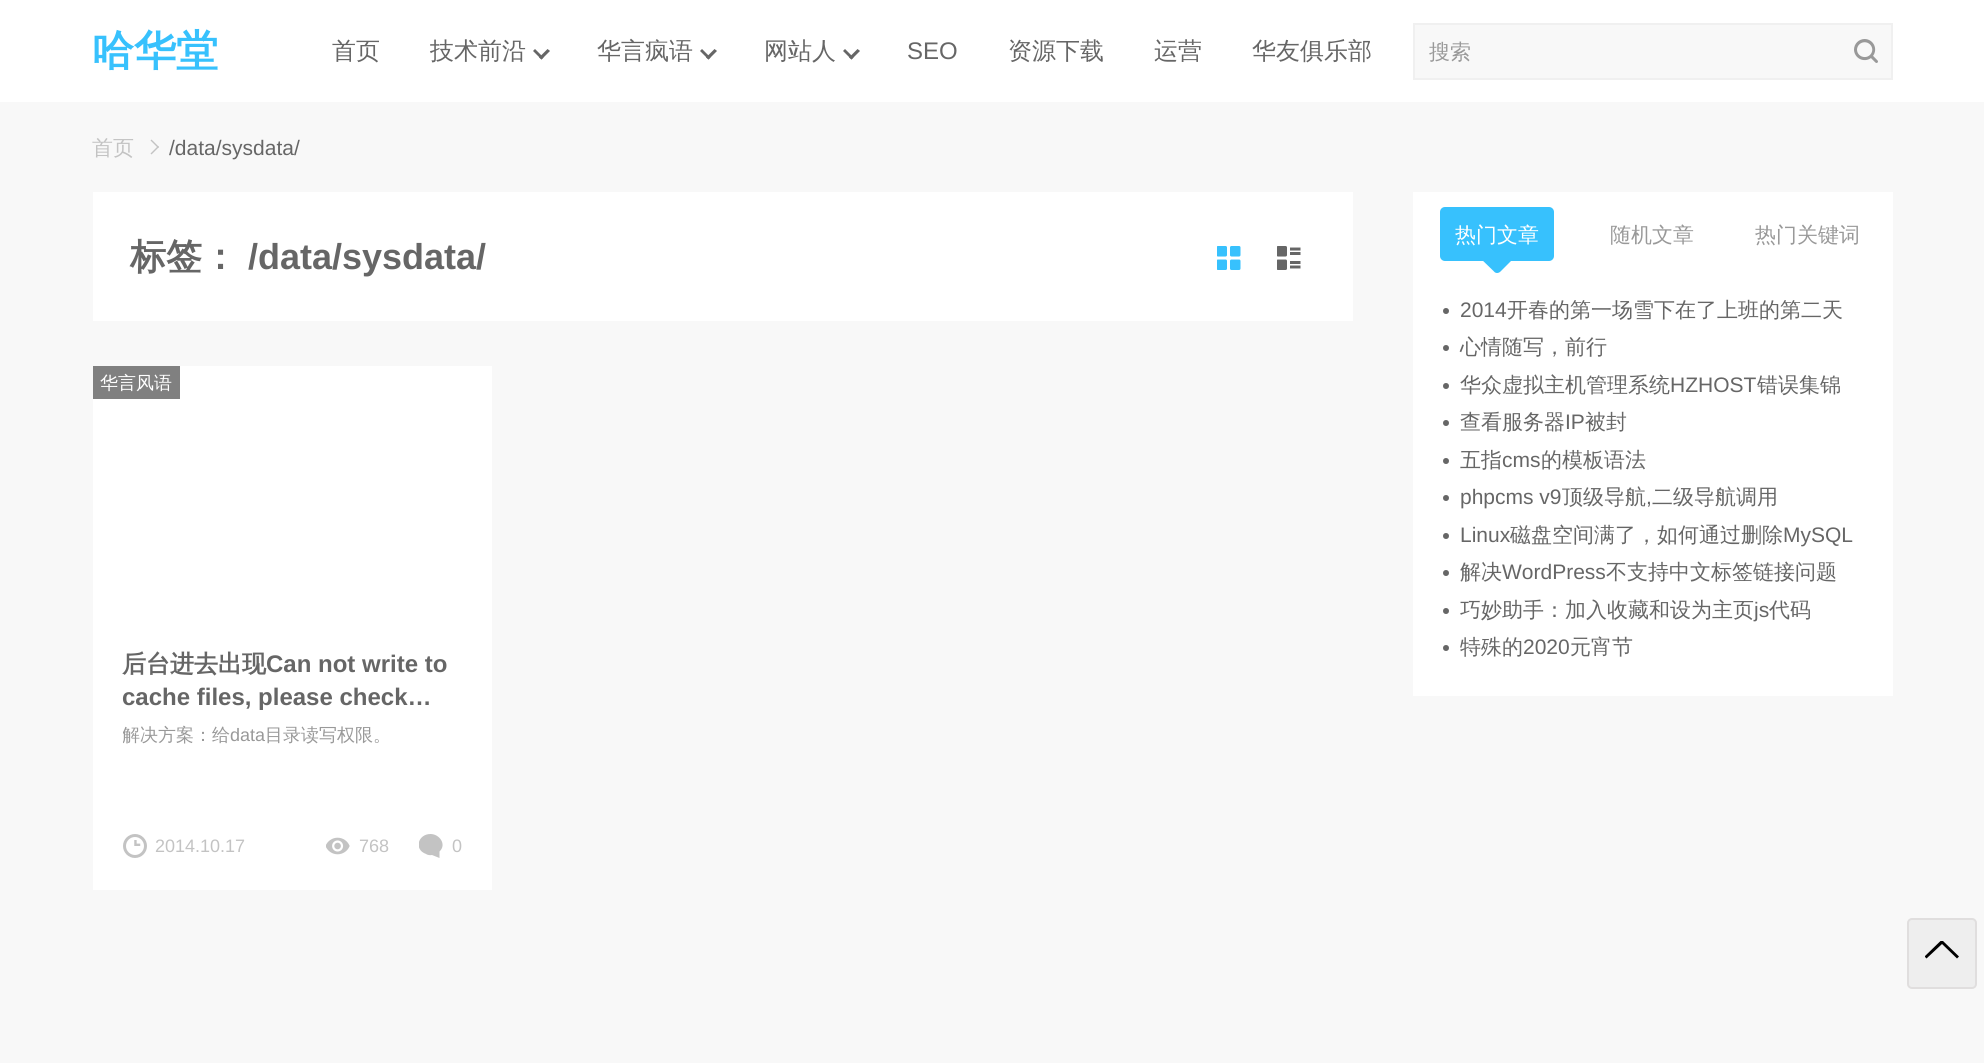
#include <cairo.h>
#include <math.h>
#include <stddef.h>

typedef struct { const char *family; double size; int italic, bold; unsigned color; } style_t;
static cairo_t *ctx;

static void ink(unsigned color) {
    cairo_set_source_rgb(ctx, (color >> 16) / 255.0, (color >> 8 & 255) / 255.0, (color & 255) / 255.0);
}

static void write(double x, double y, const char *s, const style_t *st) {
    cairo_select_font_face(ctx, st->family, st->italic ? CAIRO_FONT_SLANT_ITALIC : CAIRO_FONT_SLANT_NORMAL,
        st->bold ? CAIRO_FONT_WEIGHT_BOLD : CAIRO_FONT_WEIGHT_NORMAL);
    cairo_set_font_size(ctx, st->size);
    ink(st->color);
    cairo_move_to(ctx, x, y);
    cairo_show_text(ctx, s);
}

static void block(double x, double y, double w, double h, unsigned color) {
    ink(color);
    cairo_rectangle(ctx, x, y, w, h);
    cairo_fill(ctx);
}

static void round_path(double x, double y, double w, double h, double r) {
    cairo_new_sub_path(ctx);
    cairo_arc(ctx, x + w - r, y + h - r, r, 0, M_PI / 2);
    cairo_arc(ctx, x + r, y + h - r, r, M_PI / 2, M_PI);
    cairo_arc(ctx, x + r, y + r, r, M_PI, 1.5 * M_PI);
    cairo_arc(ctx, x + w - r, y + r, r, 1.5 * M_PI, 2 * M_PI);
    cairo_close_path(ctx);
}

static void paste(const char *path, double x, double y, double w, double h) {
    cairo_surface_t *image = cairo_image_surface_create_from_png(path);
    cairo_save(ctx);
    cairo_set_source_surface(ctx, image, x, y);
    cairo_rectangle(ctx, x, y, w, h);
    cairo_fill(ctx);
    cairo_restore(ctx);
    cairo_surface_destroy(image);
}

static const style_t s1 = {"WenQuanYi Zen Hei", 42, 0, 1, 0x37c1fd};
static const style_t s2 = {"WenQuanYi Zen Hei Medium", 24, 0, 0, 0x666666};
static const style_t s3 = {"Liberation Sans", 24, 0, 0, 0x666666};
static const style_t s4 = {"WenQuanYi Zen Hei Medium", 21, 0, 0, 0x999999};
static const style_t s5 = {"WenQuanYi Zen Hei Medium", 21, 0, 0, 0xc3c3c3};
static const style_t s6 = {"Liberation Sans", 21, 0, 0, 0x666666};
static const style_t s7 = {"WenQuanYi Zen Hei", 36, 0, 1, 0x666666};
static const style_t s8 = {"Liberation Sans", 36, 0, 1, 0x666666};
static const style_t s9 = {"WenQuanYi Zen Hei Medium", 18, 0, 0, 0xffffff};
static const style_t s10 = {"WenQuanYi Zen Hei", 24, 0, 1, 0x666666};
static const style_t s11 = {"Liberation Sans", 24, 0, 1, 0x666666};
static const style_t s12 = {"WenQuanYi Zen Hei Medium", 18, 0, 0, 0x999999};
static const style_t s13 = {"Liberation Sans", 18, 0, 0, 0x999999};
static const style_t s14 = {"Liberation Sans", 18, 0, 0, 0xc3c3c3};
static const style_t s15 = {"WenQuanYi Zen Hei Medium", 21, 0, 0, 0xffffff};
static const style_t s16 = {"WenQuanYi Zen Hei Medium", 21, 0, 0, 0x666666};

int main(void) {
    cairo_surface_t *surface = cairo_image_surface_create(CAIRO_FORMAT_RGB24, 1984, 1063);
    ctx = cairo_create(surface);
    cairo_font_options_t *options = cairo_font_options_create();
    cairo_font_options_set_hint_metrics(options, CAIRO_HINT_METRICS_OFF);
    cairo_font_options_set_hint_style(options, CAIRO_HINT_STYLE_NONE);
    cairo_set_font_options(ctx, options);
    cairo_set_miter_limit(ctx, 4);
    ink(0xf8f8f8);
    cairo_paint(ctx);
    block(0, 0, 1984, 102, 0xffffff);
    write(92, 65, "哈华堂", &s1);
    write(332, 59, "首页", &s2);
    write(430, 59, "技术前沿", &s2);
    cairo_new_path(ctx);
    cairo_move_to(ctx, 539, 57.5);
    cairo_line_to(ctx, 547.5, 49);
    cairo_line_to(ctx, 550, 51);
    cairo_line_to(ctx, 541.5, 59.5);
    cairo_close_path(ctx);
    cairo_fill(ctx);
    cairo_new_path(ctx);
    cairo_move_to(ctx, 533, 51);
    cairo_line_to(ctx, 535, 49);
    cairo_line_to(ctx, 543.5, 57.5);
    cairo_line_to(ctx, 541.5, 59.5);
    cairo_close_path(ctx);
    cairo_fill(ctx);
    write(597, 59, "华言疯语", &s2);
    cairo_new_path(ctx);
    cairo_move_to(ctx, 706, 57.5);
    cairo_line_to(ctx, 714.5, 49);
    cairo_line_to(ctx, 717, 51);
    cairo_line_to(ctx, 708.5, 59.5);
    cairo_close_path(ctx);
    cairo_fill(ctx);
    cairo_new_path(ctx);
    cairo_move_to(ctx, 700, 51);
    cairo_line_to(ctx, 702, 49);
    cairo_line_to(ctx, 710.5, 57.5);
    cairo_line_to(ctx, 708.5, 59.5);
    cairo_close_path(ctx);
    cairo_fill(ctx);
    write(764, 59, "网站人", &s2);
    cairo_new_path(ctx);
    cairo_move_to(ctx, 849, 57.5);
    cairo_line_to(ctx, 857.5, 49);
    cairo_line_to(ctx, 860, 51);
    cairo_line_to(ctx, 851.5, 59.5);
    cairo_close_path(ctx);
    cairo_fill(ctx);
    cairo_new_path(ctx);
    cairo_move_to(ctx, 843, 51);
    cairo_line_to(ctx, 845, 49);
    cairo_line_to(ctx, 853.5, 57.5);
    cairo_line_to(ctx, 851.5, 59.5);
    cairo_close_path(ctx);
    cairo_fill(ctx);
    write(907, 59, "SEO", &s3);
    write(1008, 59, "资源下载", &s2);
    write(1154, 59, "运营", &s2);
    write(1252, 59, "华友俱乐部", &s2);
    ink(0xf8f8f8);
    cairo_rectangle(ctx, 1414, 24, 478, 55);
    cairo_fill_preserve(ctx);
    ink(0xf0f0f0);
    cairo_stroke(ctx);
    write(1429, 59, "搜索", &s4);
    paste("pic1.png", 1854, 39, 24, 24);
    write(92, 155, "首页", &s5);
    cairo_new_path(ctx);
    cairo_move_to(ctx, 151.5, 139.5);
    cairo_line_to(ctx, 159, 147);
    cairo_line_to(ctx, 158, 148);
    cairo_line_to(ctx, 150.5, 140.5);
    cairo_close_path(ctx);
    cairo_fill(ctx);
    cairo_new_path(ctx);
    cairo_move_to(ctx, 158, 146);
    cairo_line_to(ctx, 159, 147);
    cairo_line_to(ctx, 151.5, 154.5);
    cairo_line_to(ctx, 150.5, 153.5);
    cairo_close_path(ctx);
    cairo_fill(ctx);
    write(169, 155, "/data/sysdata/", &s6);
    block(93, 192, 1260, 129, 0xffffff);
    write(130, 269, "标签：", &s7);
    write(248, 269, "/data/sysdata/", &s8);
    paste("pic2.png", 1217, 246, 24, 24);
    paste("pic3.png", 1277, 246, 24, 24);
    block(93, 366, 399, 524, 0xffffff);
    block(93, 366, 87, 33, 0x808080);
    write(100, 389, "华言风语", &s9);
    write(122, 672, "后台进去出现", &s10);
    write(266, 672, "Can not write to", &s11);
    write(122, 705, "cache files, please check…", &s11);
    cairo_save(ctx);
    cairo_rectangle(ctx, 123, 722, 339, 81);
    cairo_clip(ctx);
    write(122, 741, "解决方案：给", &s12);
    cairo_restore(ctx);
    write(230, 741, "data", &s13);
    write(265, 741, "目录读写权限。", &s12);
    paste("pic4.png", 123, 834, 24, 24);
    write(155, 852, "2014.10.17", &s14);
    paste("pic5.png", 326, 837, 24, 18);
    write(359, 852, "768", &s14);
    cairo_save(ctx);
    cairo_rectangle(ctx, 419, 834, 24, 24);
    cairo_clip(ctx);
    cairo_new_path(ctx);
    cairo_move_to(ctx, 430.5, 834);
    cairo_curve_to(ctx, 418, 834, 413.5, 849.5, 426, 854);
    cairo_curve_to(ctx, 427.5, 855, 430, 855.5, 432, 855);
    cairo_line_to(ctx, 439.5, 858);
    cairo_line_to(ctx, 439.5, 851.5);
    cairo_curve_to(ctx, 447, 844.5, 439.5, 834, 430.5, 834);
    cairo_close_path(ctx);
    cairo_fill(ctx);
    cairo_restore(ctx);
    write(452, 852, "0", &s14);
    block(1413, 192, 480, 504, 0xffffff);
    ink(0x37c1fd);
    cairo_new_path(ctx);
    cairo_move_to(ctx, 1479, 250.5);
    cairo_line_to(ctx, 1494, 235.5);
    cairo_curve_to(ctx, 1495.5, 234, 1498.5, 234, 1500.5, 235.5);
    cairo_line_to(ctx, 1515, 250.5);
    cairo_curve_to(ctx, 1517, 252, 1517, 255, 1515, 257);
    cairo_line_to(ctx, 1500.5, 271.5);
    cairo_curve_to(ctx, 1498.5, 273.5, 1495.5, 273.5, 1494, 271.5);
    cairo_line_to(ctx, 1479, 257);
    cairo_curve_to(ctx, 1477.5, 255, 1477.5, 252, 1479, 250.5);
    cairo_close_path(ctx);
    cairo_fill(ctx);
    round_path(1440, 207, 114, 54, 5);
    cairo_fill(ctx);
    write(1455, 242, "热门文章", &s15);
    write(1610, 242, "随机文章", &s4);
    write(1755, 242, "热门关键词", &s4);
    ink(0x666666);
    cairo_new_path(ctx);
    cairo_arc(ctx, 1446, 311, 3, 0, 2 * M_PI);
    cairo_fill(ctx);
    write(1460, 317, "2014", &s6);
    write(1507, 317, "开春的第一场雪下在了上班的第二天", &s16);
    cairo_new_path(ctx);
    cairo_arc(ctx, 1446, 348, 3, 0, 2 * M_PI);
    cairo_fill(ctx);
    write(1460, 354, "心情随写，前行", &s16);
    cairo_new_path(ctx);
    cairo_arc(ctx, 1446, 386, 3, 0, 2 * M_PI);
    cairo_fill(ctx);
    write(1460, 392, "华众虚拟主机管理系统", &s16);
    write(1670, 392, "HZHOST", &s6);
    write(1757, 392, "错误集锦", &s16);
    cairo_new_path(ctx);
    cairo_arc(ctx, 1446, 423, 3, 0, 2 * M_PI);
    cairo_fill(ctx);
    write(1460, 429, "查看服务器", &s16);
    write(1565, 429, "IP", &s6);
    write(1585, 429, "被封", &s16);
    cairo_new_path(ctx);
    cairo_arc(ctx, 1446, 461, 3, 0, 2 * M_PI);
    cairo_fill(ctx);
    write(1460, 467, "五指", &s16);
    write(1502, 467, "cms", &s6);
    write(1541, 467, "的模板语法", &s16);
    cairo_new_path(ctx);
    cairo_arc(ctx, 1446, 498, 3, 0, 2 * M_PI);
    cairo_fill(ctx);
    write(1460, 504, "phpcms v9", &s6);
    write(1562, 504, "顶级导航", &s16);
    write(1646, 504, ",", &s6);
    write(1652, 504, "二级导航调用", &s16);
    cairo_new_path(ctx);
    cairo_arc(ctx, 1446, 536, 3, 0, 2 * M_PI);
    cairo_fill(ctx);
    write(1460, 542, "Linux", &s6);
    write(1510, 542, "磁盘空间满了，如何通过删除", &s16);
    write(1783, 542, "MySQL", &s6);
    cairo_new_path(ctx);
    cairo_arc(ctx, 1446, 573, 3, 0, 2 * M_PI);
    cairo_fill(ctx);
    write(1460, 579, "解决", &s16);
    write(1502, 579, "WordPress", &s6);
    write(1606, 579, "不支持中文标签链接问题", &s16);
    cairo_new_path(ctx);
    cairo_arc(ctx, 1446, 611, 3, 0, 2 * M_PI);
    cairo_fill(ctx);
    write(1460, 617, "巧妙助手：加入收藏和设为主页", &s16);
    write(1754, 617, "js", &s6);
    write(1769, 617, "代码", &s16);
    cairo_new_path(ctx);
    cairo_arc(ctx, 1446, 648, 3, 0, 2 * M_PI);
    cairo_fill(ctx);
    write(1460, 654, "特殊的", &s16);
    write(1523, 654, "2020", &s6);
    write(1570, 654, "元宵节", &s16);
    ink(0xeeeeee);
    round_path(1908, 919, 68, 69, 4);
    cairo_fill_preserve(ctx);
    ink(0xe0dede);
    cairo_stroke(ctx);
    cairo_save(ctx);
    cairo_rectangle(ctx, 1925, 941, 34, 18);
    cairo_clip(ctx);
    ink(0x000000);
    cairo_set_fill_rule(ctx, CAIRO_FILL_RULE_EVEN_ODD);
    cairo_new_path(ctx);
    cairo_move_to(ctx, 1957, 958.5);
    cairo_line_to(ctx, 1942, 944);
    cairo_line_to(ctx, 1926.5, 958.5);
    cairo_line_to(ctx, 1924.5, 956.5);
    cairo_line_to(ctx, 1940.5, 941);
    cairo_curve_to(ctx, 1941.5, 940.5, 1942, 940.5, 1943, 941);
    cairo_line_to(ctx, 1959, 956.5);
    cairo_close_path(ctx);
    cairo_fill(ctx);
    cairo_restore(ctx);
    cairo_surface_write_to_png(surface, "screenshot.png");
    cairo_font_options_destroy(options);
    cairo_destroy(ctx);
    cairo_surface_destroy(surface);
    return 0;
}
